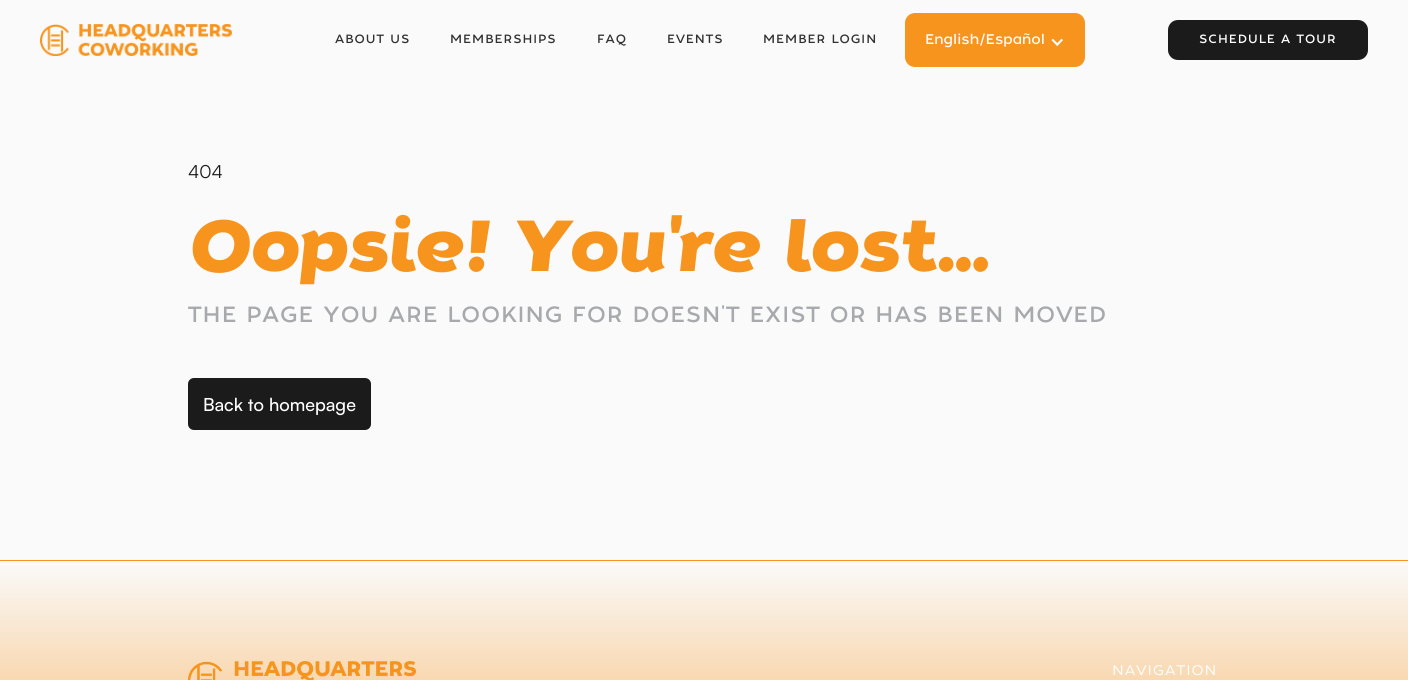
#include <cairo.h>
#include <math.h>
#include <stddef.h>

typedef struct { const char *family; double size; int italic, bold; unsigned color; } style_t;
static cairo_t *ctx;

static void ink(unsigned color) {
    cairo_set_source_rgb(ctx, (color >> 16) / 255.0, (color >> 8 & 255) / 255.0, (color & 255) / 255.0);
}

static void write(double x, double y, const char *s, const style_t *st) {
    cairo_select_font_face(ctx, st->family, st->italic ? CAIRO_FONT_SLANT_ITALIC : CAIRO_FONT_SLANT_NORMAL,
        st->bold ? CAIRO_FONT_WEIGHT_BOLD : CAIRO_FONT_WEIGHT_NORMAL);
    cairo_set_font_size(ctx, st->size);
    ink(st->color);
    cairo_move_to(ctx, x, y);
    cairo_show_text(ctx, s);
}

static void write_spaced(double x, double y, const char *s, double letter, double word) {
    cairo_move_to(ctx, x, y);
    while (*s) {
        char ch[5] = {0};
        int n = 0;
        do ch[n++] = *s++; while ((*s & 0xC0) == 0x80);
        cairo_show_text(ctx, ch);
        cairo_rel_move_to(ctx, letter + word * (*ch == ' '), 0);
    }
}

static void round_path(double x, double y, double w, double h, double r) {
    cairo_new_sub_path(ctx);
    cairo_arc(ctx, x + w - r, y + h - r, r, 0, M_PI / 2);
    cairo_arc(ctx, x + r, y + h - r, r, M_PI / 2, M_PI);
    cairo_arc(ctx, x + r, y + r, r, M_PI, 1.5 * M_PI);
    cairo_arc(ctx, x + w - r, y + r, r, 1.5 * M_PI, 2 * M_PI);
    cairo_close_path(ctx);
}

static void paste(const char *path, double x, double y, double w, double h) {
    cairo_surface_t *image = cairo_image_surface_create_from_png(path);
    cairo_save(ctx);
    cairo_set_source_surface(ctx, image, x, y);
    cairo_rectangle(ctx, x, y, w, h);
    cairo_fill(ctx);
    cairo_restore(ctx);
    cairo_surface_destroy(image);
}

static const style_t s1 = {"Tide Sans", 14, 0, 0, 0xffffff};
static const style_t s2 = {"Satoshi", 18, 0, 0, 0x1b1b1b};
static const style_t s3 = {"Tide Sans", 72, 1, 1, 0xf7941d};
static const style_t s4 = {"Satoshi Medium", 18, 0, 0, 0xffffff};

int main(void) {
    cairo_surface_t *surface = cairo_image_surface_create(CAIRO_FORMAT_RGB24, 1408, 680);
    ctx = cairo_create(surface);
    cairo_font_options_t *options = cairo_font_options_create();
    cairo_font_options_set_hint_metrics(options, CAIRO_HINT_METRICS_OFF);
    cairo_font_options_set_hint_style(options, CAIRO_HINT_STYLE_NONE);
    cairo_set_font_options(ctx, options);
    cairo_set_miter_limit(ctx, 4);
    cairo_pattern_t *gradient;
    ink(0xfafafa);
    cairo_paint(ctx);
    paste("pic1.png", 40, 24, 192, 32);
    cairo_select_font_face(ctx, "Tide Sans", CAIRO_FONT_SLANT_NORMAL, CAIRO_FONT_WEIGHT_NORMAL);
    cairo_set_font_size(ctx, 12);
    ink(0x313131);
    write_spaced(335, 43, "ABOUT US", 1, 0);
    write_spaced(450, 43, "MEMBERSHIPS", 1, 0);
    write_spaced(597, 43, "FAQ", 1, 0);
    write_spaced(667, 43, "EVENTS", 1, 0);
    write_spaced(763, 43, "MEMBER LOGIN", 1, 0);
    ink(0xf7941d);
    round_path(905, 13, 180, 54, 10);
    cairo_fill(ctx);
    write(925, 44, "English/Español", &s1);
    paste("pic2.png", 1051, 38, 12, 9);
    ink(0x1b1b1b);
    round_path(1168, 20, 200, 40, 10);
    cairo_fill(ctx);
    cairo_set_font_size(ctx, 12);
    ink(0xffffff);
    write_spaced(1199, 43, "SCHEDULE A TOUR", 1, 0);
    write(188, 178, "404", &s2);
    write(188, 271, "Oopsie! You're lost...", &s3);
    cairo_select_font_face(ctx, "Tide Sans", CAIRO_FONT_SLANT_NORMAL, CAIRO_FONT_WEIGHT_NORMAL);
    cairo_set_font_size(ctx, 22);
    ink(0xa7a9ac);
    write_spaced(188, 322, "THE PAGE YOU ARE LOOKING FOR DOESN'T EXIST OR HAS BEEN MOVED", 1, 0);
    ink(0x1b1b1b);
    round_path(188, 378, 183, 52, 6);
    cairo_fill(ctx);
    write(203, 411, "Back to homepage", &s4);
    gradient = cairo_pattern_create_linear(704, 158, 704, 561);
    cairo_pattern_add_color_stop_rgba(gradient, 0, 0.98, 0.98, 0.98, 1);
    cairo_pattern_add_color_stop_rgba(gradient, 0.9, 0.969, 0.58, 0.114, 1);
    cairo_set_source(ctx, gradient);
    cairo_pattern_destroy(gradient);
    cairo_rectangle(ctx, 0, 560, 1408, 1);
    cairo_fill(ctx);
    gradient = cairo_pattern_create_linear(704, 561, 704, 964);
    cairo_pattern_add_color_stop_rgba(gradient, 0, 0.98, 0.98, 0.98, 1);
    cairo_pattern_add_color_stop_rgba(gradient, 0.9, 0.969, 0.58, 0.114, 1);
    cairo_set_source(ctx, gradient);
    cairo_pattern_destroy(gradient);
    cairo_rectangle(ctx, 0, 565, 1408, 115);
    cairo_fill(ctx);
    paste("pic3.png", 188, 661, 228, 19);
    cairo_select_font_face(ctx, "Tide Sans Light", CAIRO_FONT_SLANT_NORMAL, CAIRO_FONT_WEIGHT_NORMAL);
    cairo_set_font_size(ctx, 14);
    ink(0xffffff);
    write_spaced(1112, 675, "NAVIGATION", 1, 0);
    cairo_surface_write_to_png(surface, "screenshot.png");
    cairo_font_options_destroy(options);
    cairo_destroy(ctx);
    cairo_surface_destroy(surface);
    return 0;
}
